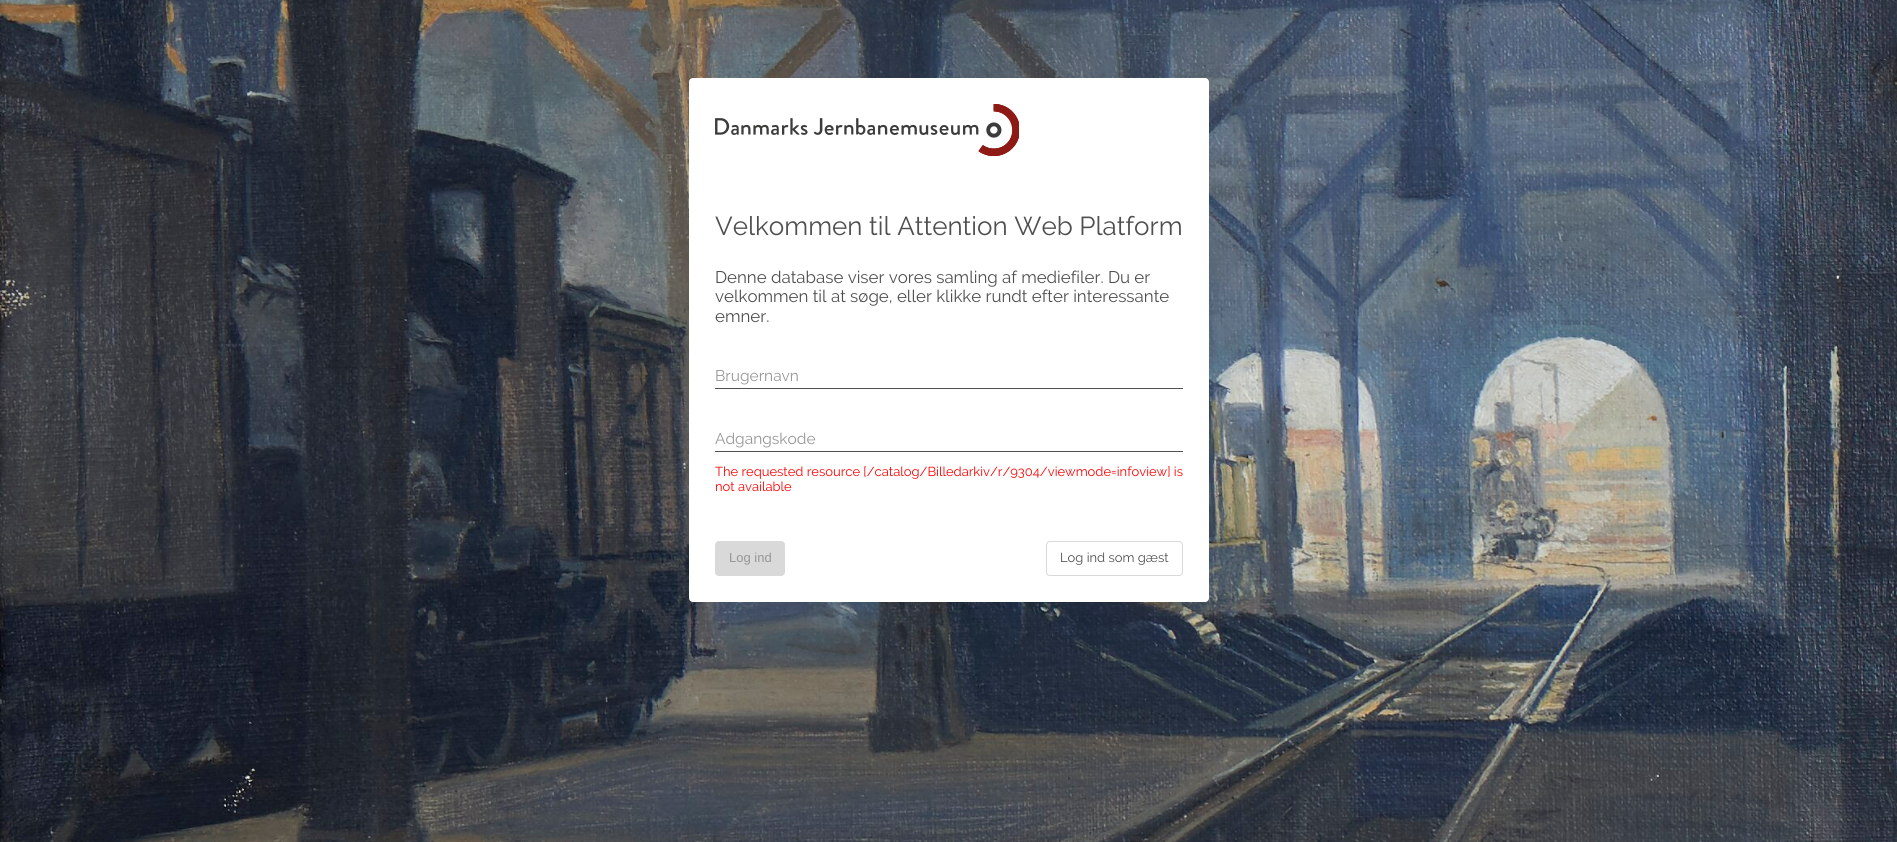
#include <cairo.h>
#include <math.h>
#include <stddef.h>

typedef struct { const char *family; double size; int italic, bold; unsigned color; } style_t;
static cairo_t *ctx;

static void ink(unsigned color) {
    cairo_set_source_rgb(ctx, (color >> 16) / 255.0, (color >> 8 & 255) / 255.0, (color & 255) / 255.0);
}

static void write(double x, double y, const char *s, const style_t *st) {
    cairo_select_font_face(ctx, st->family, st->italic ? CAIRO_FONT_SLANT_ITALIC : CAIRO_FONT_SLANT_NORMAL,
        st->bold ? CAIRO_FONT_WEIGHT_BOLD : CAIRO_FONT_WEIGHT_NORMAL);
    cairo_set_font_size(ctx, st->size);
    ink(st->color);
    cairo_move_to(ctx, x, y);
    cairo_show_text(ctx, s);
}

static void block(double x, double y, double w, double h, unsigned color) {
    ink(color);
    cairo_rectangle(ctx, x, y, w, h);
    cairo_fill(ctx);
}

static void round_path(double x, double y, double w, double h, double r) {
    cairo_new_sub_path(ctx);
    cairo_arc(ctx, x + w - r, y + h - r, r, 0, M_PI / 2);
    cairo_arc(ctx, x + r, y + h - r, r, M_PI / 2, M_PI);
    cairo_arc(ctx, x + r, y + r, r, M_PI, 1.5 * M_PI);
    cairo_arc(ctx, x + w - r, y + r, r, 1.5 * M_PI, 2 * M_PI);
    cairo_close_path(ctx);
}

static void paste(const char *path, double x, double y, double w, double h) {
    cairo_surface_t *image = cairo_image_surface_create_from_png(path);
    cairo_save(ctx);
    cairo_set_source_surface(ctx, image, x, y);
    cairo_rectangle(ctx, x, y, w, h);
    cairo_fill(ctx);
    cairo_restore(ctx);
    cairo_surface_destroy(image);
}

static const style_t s1 = {"Raleway", 26, 0, 0, 0x4f4f4f};
static const style_t s2 = {"Raleway", 16.9, 0, 0, 0x4f4f4f};
static const style_t s3 = {"Raleway", 15.5, 0, 0, 0x969696};
static const style_t s4 = {"Raleway", 13, 0, 0, 0xff0000};
static const style_t s5 = {"Liberation Sans", 13, 0, 0, 0x969696};
static const style_t s6 = {"Raleway", 13, 0, 0, 0x4f4f4f};

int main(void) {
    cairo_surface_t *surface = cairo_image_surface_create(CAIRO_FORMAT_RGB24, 1897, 842);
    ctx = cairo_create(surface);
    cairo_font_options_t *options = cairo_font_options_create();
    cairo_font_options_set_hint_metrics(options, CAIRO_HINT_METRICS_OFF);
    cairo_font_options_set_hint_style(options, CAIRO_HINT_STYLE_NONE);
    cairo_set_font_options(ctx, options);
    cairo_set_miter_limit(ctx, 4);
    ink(0xffffff);
    cairo_paint(ctx);
    paste("pic1.png", 0, 0, 1897, 842);
    ink(0xffffff);
    round_path(689, 78, 520, 524, 4);
    cairo_fill(ctx);
    paste("pic2.png", 715, 104, 304, 52);
    write(715, 235, "Velkommen til Attention Web Platform", &s1);
    write(715, 283, "Denne database viser vores samling af mediefiler. Du er", &s2);
    write(715, 302, "velkommen til at søge, eller klikke rundt efter interessante", &s2);
    write(715, 322, "emner.", &s2);
    write(715, 381, "Brugernavn", &s3);
    block(715, 388, 468, 1, 0x4f4f4f);
    write(715, 444, "Adgangskode", &s3);
    block(715, 451, 468, 1, 0x4f4f4f);
    write(715, 476, "The requested resource [/catalog/Billedarkiv/r/9304/viewmode=infoview] is", &s4);
    write(715, 491, "not available", &s4);
    ink(0xd9d9d9);
    round_path(715.5, 541.5, 69, 34, 3.5);
    cairo_fill_preserve(ctx);
    cairo_set_line_width(ctx, 1);
    cairo_stroke(ctx);
    write(729, 562, "Log ind", &s5);
    round_path(1046.5, 541.5, 136, 34, 3.5);
    ink(0xd9d9d9);
    cairo_stroke(ctx);
    write(1060, 562, "Log ind som gæst", &s6);
    cairo_surface_write_to_png(surface, "screenshot.png");
    cairo_font_options_destroy(options);
    cairo_destroy(ctx);
    cairo_surface_destroy(surface);
    return 0;
}
